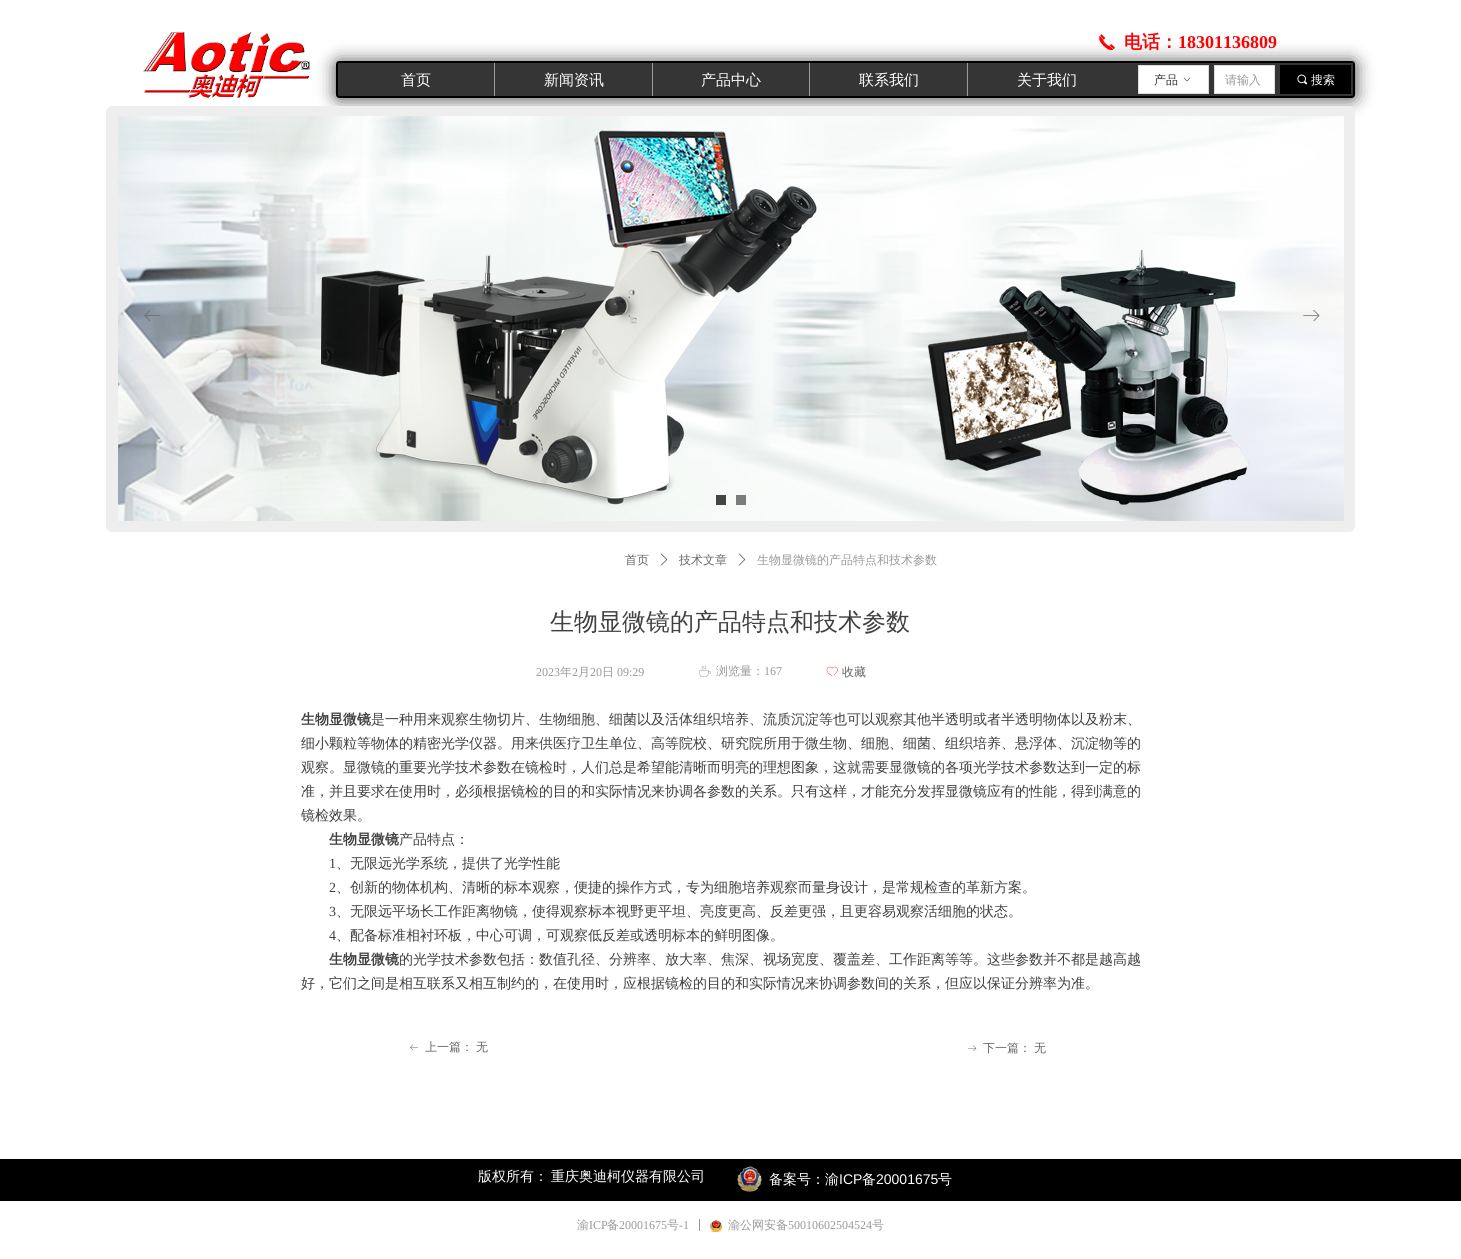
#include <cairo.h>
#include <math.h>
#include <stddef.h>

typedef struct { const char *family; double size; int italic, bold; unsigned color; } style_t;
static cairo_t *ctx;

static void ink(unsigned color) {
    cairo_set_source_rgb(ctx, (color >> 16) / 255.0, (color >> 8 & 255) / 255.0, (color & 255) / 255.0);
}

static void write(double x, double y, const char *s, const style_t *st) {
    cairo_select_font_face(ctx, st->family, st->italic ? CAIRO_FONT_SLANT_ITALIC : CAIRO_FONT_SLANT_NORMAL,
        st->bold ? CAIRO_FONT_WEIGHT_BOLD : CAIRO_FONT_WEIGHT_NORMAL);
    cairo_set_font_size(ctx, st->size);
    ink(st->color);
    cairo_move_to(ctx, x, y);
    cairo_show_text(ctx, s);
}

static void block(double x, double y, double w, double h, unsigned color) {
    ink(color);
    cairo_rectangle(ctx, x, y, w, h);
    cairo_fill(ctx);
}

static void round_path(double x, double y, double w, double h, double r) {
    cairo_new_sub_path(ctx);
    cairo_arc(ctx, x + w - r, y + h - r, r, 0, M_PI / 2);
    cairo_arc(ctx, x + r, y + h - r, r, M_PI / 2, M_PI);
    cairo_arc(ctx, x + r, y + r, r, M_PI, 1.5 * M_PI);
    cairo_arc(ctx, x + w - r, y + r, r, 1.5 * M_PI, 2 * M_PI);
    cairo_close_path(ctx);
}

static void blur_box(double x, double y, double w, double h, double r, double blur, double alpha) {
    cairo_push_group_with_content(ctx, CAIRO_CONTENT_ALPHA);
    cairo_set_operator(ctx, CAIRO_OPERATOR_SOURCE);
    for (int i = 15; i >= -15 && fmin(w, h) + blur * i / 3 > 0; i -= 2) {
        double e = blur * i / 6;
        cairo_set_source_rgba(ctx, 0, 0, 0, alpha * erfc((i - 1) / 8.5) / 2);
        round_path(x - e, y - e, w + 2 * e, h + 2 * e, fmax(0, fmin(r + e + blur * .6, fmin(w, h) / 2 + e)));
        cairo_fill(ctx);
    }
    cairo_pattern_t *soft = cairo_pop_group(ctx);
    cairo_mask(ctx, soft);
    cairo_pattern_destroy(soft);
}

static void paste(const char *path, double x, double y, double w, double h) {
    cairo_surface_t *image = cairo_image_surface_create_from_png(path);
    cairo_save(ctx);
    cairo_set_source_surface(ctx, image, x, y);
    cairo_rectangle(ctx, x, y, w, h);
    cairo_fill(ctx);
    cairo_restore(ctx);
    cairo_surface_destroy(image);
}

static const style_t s1 = {"WenQuanYi Zen Hei", 18, 0, 1, 0xff0000};
static const style_t s2 = {"Liberation Serif", 18, 0, 1, 0xff0000};
static const style_t s3 = {"WenQuanYi Zen Hei Medium", 15, 0, 0, 0xffffff};
static const style_t s4 = {"WenQuanYi Zen Hei Medium", 12, 0, 0, 0x333333};
static const style_t s5 = {"WenQuanYi Zen Hei Medium", 12, 0, 0, 0x999999};
static const style_t s6 = {"WenQuanYi Zen Hei Medium", 12, 0, 0, 0xffffff};
static const style_t s7 = {"WenQuanYi Zen Hei Medium", 12, 0, 0, 0x666666};
static const style_t s8 = {"WenQuanYi Zen Hei Medium", 24, 0, 0, 0x404040};
static const style_t s9 = {"Liberation Serif", 12, 0, 0, 0x999999};
static const style_t s10 = {"WenQuanYi Zen Hei", 14, 0, 1, 0x404040};
static const style_t s11 = {"WenQuanYi Zen Hei Medium", 14, 0, 0, 0x404040};
static const style_t s12 = {"Liberation Serif", 14, 0, 0, 0x404040};
static const style_t s13 = {"WenQuanYi Zen Hei Medium", 14, 0, 0, 0xffffff};
static const style_t s14 = {"Liberation Sans", 14, 0, 0, 0xffffff};

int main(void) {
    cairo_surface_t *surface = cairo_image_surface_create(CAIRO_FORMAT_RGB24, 1461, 1259);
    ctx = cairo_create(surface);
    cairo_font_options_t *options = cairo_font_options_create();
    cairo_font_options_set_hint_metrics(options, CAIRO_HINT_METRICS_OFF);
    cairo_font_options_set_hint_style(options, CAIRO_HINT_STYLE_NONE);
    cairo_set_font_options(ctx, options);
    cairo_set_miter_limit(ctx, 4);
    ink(0xffffff);
    cairo_paint(ctx);
    cairo_save(ctx);
    cairo_set_fill_rule(ctx, CAIRO_FILL_RULE_EVEN_ODD);
    cairo_new_path(ctx);
    cairo_move_to(ctx, 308, 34);
    cairo_line_to(ctx, 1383, 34);
    cairo_line_to(ctx, 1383, 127);
    cairo_line_to(ctx, 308, 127);
    cairo_close_path(ctx);
    cairo_move_to(ctx, 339, 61);
    cairo_line_to(ctx, 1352, 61);
    cairo_curve_to(ctx, 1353.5, 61, 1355, 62.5, 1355, 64);
    cairo_line_to(ctx, 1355, 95);
    cairo_curve_to(ctx, 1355, 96.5, 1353.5, 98, 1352, 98);
    cairo_line_to(ctx, 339, 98);
    cairo_curve_to(ctx, 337.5, 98, 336, 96.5, 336, 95);
    cairo_line_to(ctx, 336, 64);
    cairo_curve_to(ctx, 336, 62.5, 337.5, 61, 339, 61);
    cairo_close_path(ctx);
    cairo_clip(ctx);
    ink(0x444444);
    blur_box(336, 62, 1019, 37, 3, 9, 1);
    cairo_restore(ctx);
    paste("pic1.png", 143, 32, 167, 66);
    paste("pic2.png", 1099, 34, 16, 16);
    write(1124, 48, "电话：", &s1);
    write(1178, 48, "18301136809", &s2);
    cairo_set_source_rgba(ctx, 0, 0, 0, 0.79);
    round_path(337, 62, 1017, 35, 2);
    cairo_fill_preserve(ctx);
    ink(0x000000);
    cairo_stroke(ctx);
    write(401, 85, "首页", &s3);
    block(494, 63, 1, 33, 0x999999);
    write(544, 85, "新闻资讯", &s3);
    block(652, 63, 1, 33, 0x999999);
    write(701, 85, "产品中心", &s3);
    block(809, 63, 1, 33, 0x999999);
    write(859, 85, "联系我们", &s3);
    block(967, 63, 1, 33, 0x999999);
    write(1017, 85, "关于我们", &s3);
    cairo_rectangle(ctx, 1138.5, 65.5, 70, 28);
    cairo_fill_preserve(ctx);
    ink(0xdddddd);
    cairo_set_line_width(ctx, 1);
    cairo_stroke(ctx);
    write(1154, 84, "产品", &s4);
    paste("pic3.png", 1183, 77, 8, 5);
    ink(0xffffff);
    cairo_rectangle(ctx, 1214.5, 65.5, 60, 28);
    cairo_fill_preserve(ctx);
    ink(0xdddddd);
    cairo_stroke(ctx);
    write(1225, 84, "请输入", &s5);
    block(1280, 65, 71, 29, 0x000000);
    paste("pic4.png", 1297, 74, 11, 11);
    write(1311, 84, "搜索", &s6);
    ink(0xeeeeee);
    round_path(106, 106, 1249, 426, 6);
    cairo_fill(ctx);
    paste("pic5.png", 118, 116, 1226, 405);
    paste("pic6.png", 144, 310, 17, 12);
    paste("pic7.png", 1303, 310, 17, 12);
    block(716, 495, 10, 10, 0x444444);
    block(736, 495, 10, 10, 0x7a7b7a);
    write(625, 564, "首页", &s7);
    paste("pic8.png", 660, 553, 8, 13);
    write(679, 564, "技术文章", &s7);
    paste("pic8.png", 738, 553, 8, 13);
    write(757, 564, "生物显微镜的产品特点和技术参数", &s5);
    write(550, 630, "生物显微镜的产品特点和技术参数", &s8);
    write(536, 676, "2023", &s9);
    write(560, 676, "年", &s5);
    write(572, 676, "2", &s9);
    write(578, 676, "月", &s5);
    write(590, 676, "20", &s9);
    write(602, 676, "日", &s5);
    write(617, 676, "09:29", &s9);
    paste("pic9.png", 699, 665, 12, 12);
    write(716, 675, "浏览量：", &s5);
    write(764, 675, "167", &s9);
    paste("pic10.png", 826, 666, 12, 11);
    write(842, 676, "收藏", &s7);
    write(301, 724, "生物显微镜", &s10);
    write(371, 724, "是一种用来观察生物切片、生物细胞、细菌以及活体组织培养、流质沉淀等也可以观察其他半透明或者半透明物体以及粉末、", &s11);
    write(301, 748, "细小颗粒等物体的精密光学仪器。用来供医疗卫生单位、高等院校、研究院所用于微生物、细胞、细菌、组织培养、悬浮体、沉淀物等的", &s11);
    write(301, 772, "观察。显微镜的重要光学技术参数在镜检时，人们总是希望能清晰而明亮的理想图象，这就需要显微镜的各项光学技术参数达到一定的标", &s11);
    write(301, 796, "准，并且要求在使用时，必须根据镜检的目的和实际情况来协调各参数的关系。只有这样，才能充分发挥显微镜应有的性能，得到满意的", &s11);
    write(301, 820, "镜检效果。", &s11);
    write(329, 844, "生物显微镜", &s10);
    write(399, 844, "产品特点：", &s11);
    write(329, 868, "1", &s12);
    write(336, 868, "、无限远光学系统，提供了光学性能", &s11);
    write(329, 892, "2", &s12);
    write(336, 892, "、创新的物体机构、清晰的标本观察，便捷的操作方式，专为细胞培养观察而量身设计，是常规检查的革新方案。", &s11);
    write(329, 916, "3", &s12);
    write(336, 916, "、无限远平场长工作距离物镜，使得观察标本视野更平坦、亮度更高、反差更强，且更容易观察活细胞的状态。", &s11);
    write(329, 940, "4", &s12);
    write(336, 940, "、配备标准相衬环板，中心可调，可观察低反差或透明标本的鲜明图像。", &s11);
    write(329, 964, "生物显微镜", &s10);
    write(399, 964, "的光学技术参数包括：数值孔径、分辨率、放大率、焦深、视场宽度、覆盖差、工作距离等等。这些参数并不都是越高越", &s11);
    write(301, 988, "好，它们之间是相互联系又相互制约的，在使用时，应根据镜检的目的和实际情况来协调参数间的关系，但应以保证分辨率为准。", &s11);
    paste("pic11.png", 410, 1044, 9, 7);
    write(425, 1051, "上一篇：", &s7);
    write(476, 1051, "无", &s7);
    paste("pic12.png", 968, 1045, 9, 7);
    write(983, 1052, "下一篇：", &s7);
    write(1034, 1052, "无", &s7);
    block(0, 1159, 1461, 42, 0x000000);
    write(478, 1181, "版权所有：", &s13);
    write(551, 1181, "重庆奥迪柯仪器有限公司", &s13);
    paste("pic13.png", 737, 1166, 25, 26);
    write(769, 1184, "备案号：渝", &s13);
    write(839, 1184, "ICP", &s14);
    write(862, 1184, "备", &s13);
    write(876, 1184, "20001675", &s14);
    write(938, 1184, "号", &s13);
    write(577, 1229, "渝", &s5);
    write(589, 1229, "ICP", &s9);
    write(607, 1229, "备", &s5);
    write(619, 1229, "20001675", &s9);
    write(667, 1229, "号", &s5);
    write(679, 1229, "-1", &s9);
    block(699, 1219, 1, 12, 0x989898);
    paste("pic14.png", 710, 1220, 12, 12);
    write(728, 1229, "渝公网安备", &s5);
    write(788, 1229, "50010602504524", &s9);
    write(872, 1229, "号", &s5);
    cairo_surface_write_to_png(surface, "screenshot.png");
    cairo_font_options_destroy(options);
    cairo_destroy(ctx);
    cairo_surface_destroy(surface);
    return 0;
}
